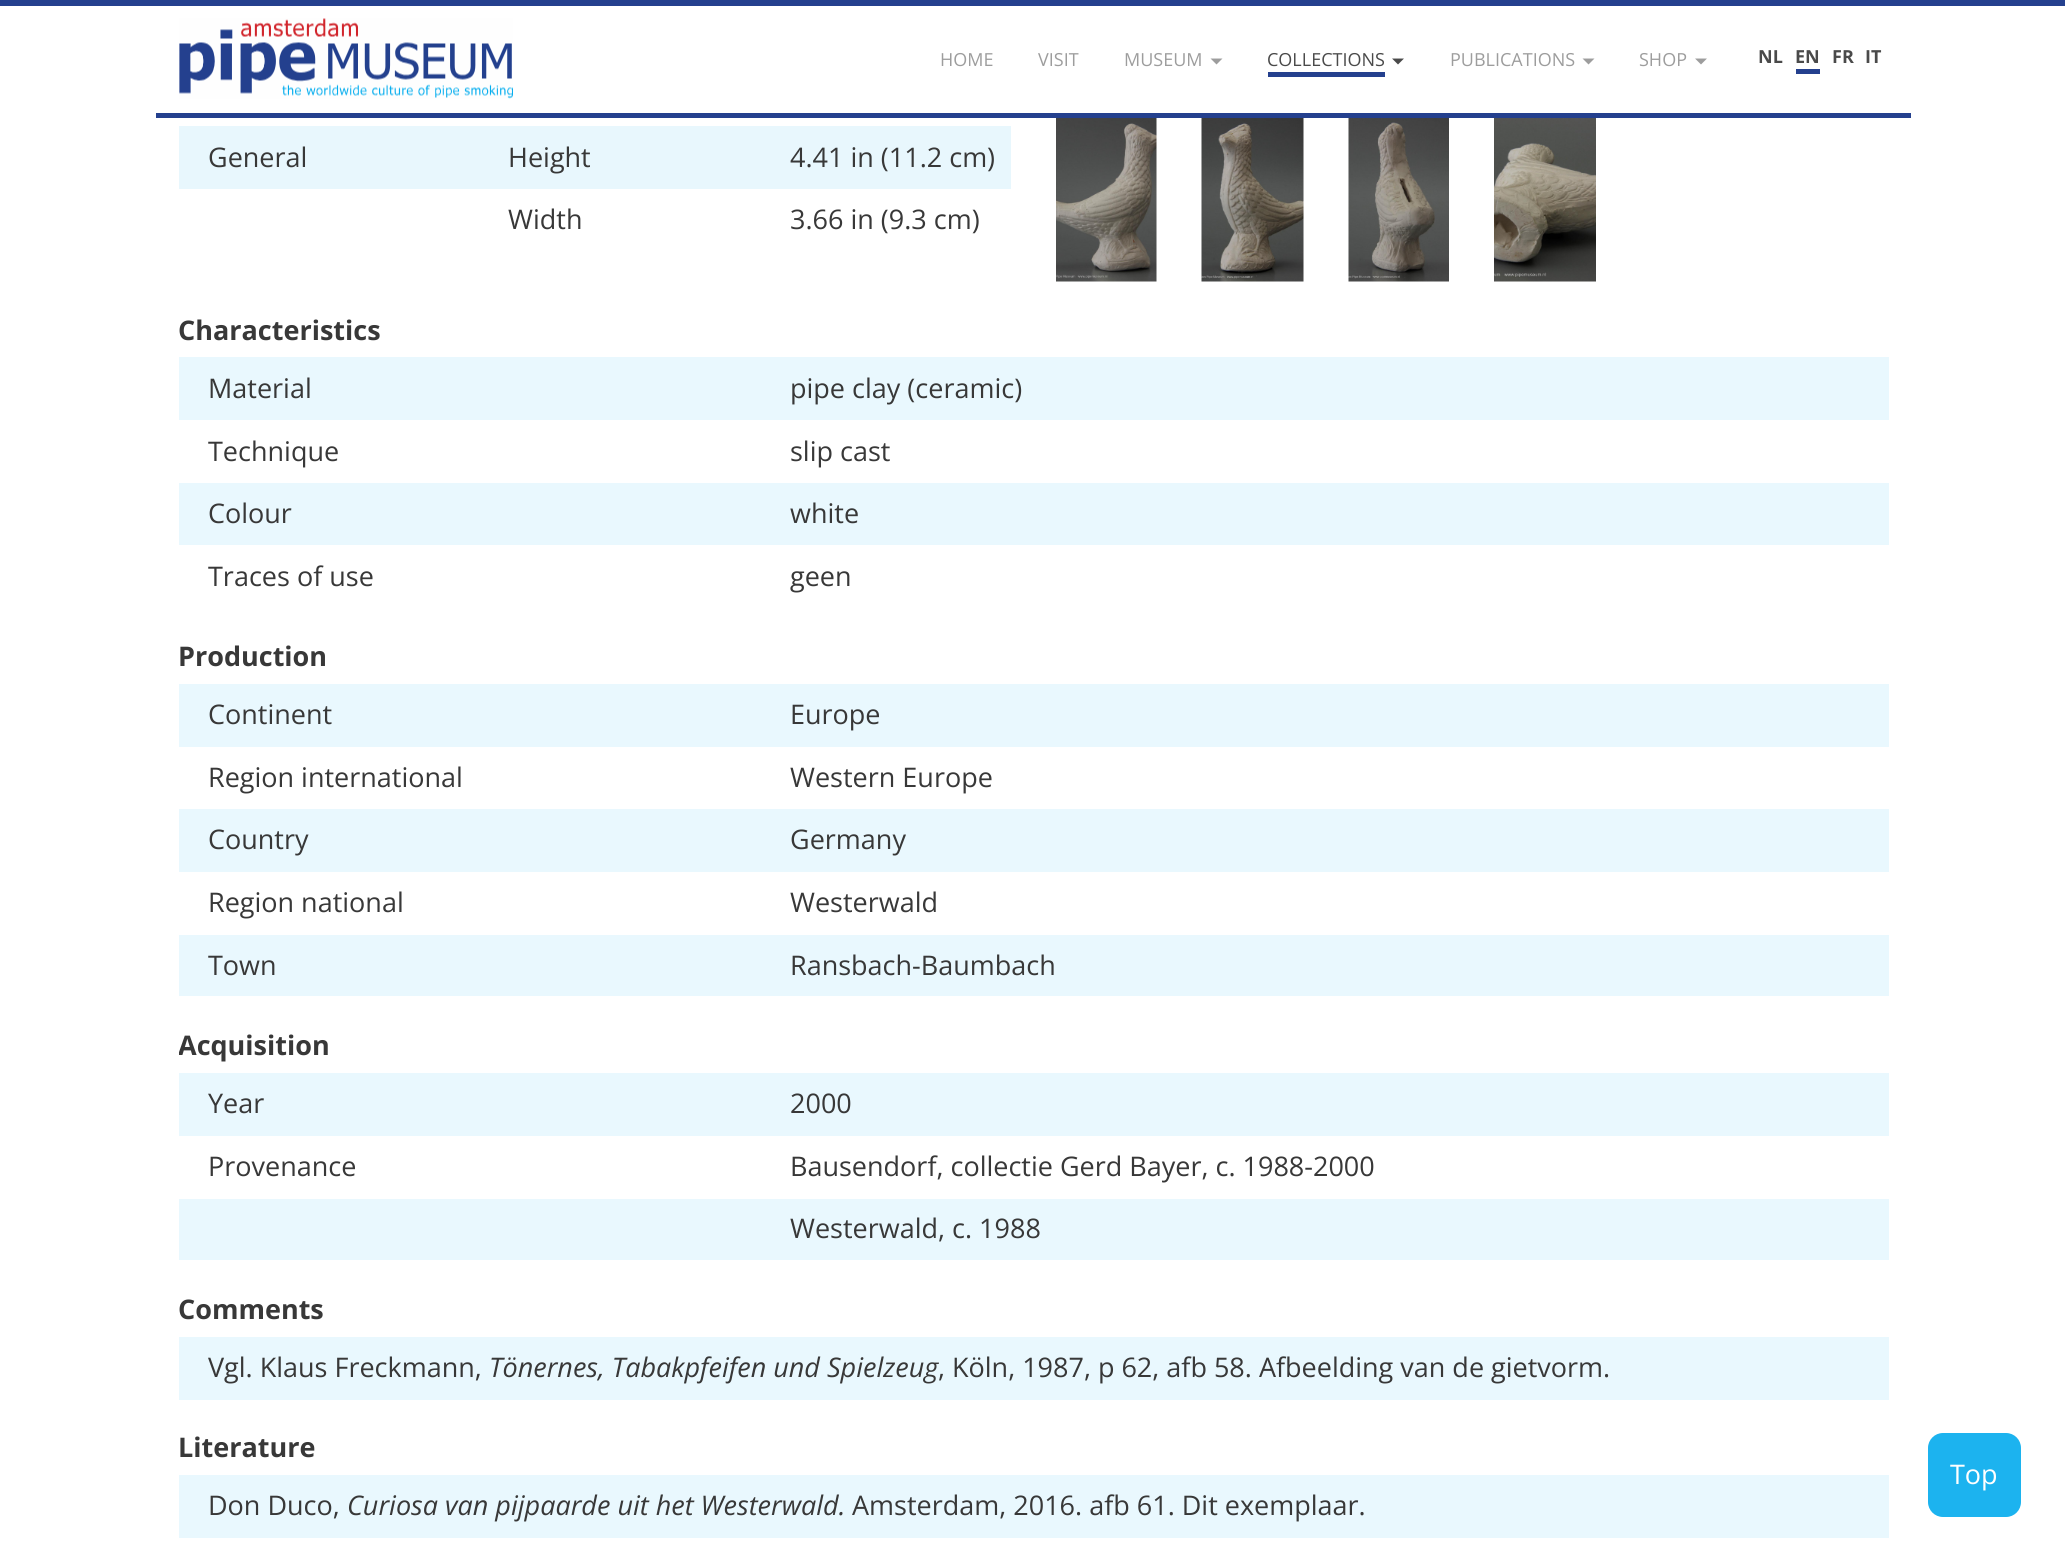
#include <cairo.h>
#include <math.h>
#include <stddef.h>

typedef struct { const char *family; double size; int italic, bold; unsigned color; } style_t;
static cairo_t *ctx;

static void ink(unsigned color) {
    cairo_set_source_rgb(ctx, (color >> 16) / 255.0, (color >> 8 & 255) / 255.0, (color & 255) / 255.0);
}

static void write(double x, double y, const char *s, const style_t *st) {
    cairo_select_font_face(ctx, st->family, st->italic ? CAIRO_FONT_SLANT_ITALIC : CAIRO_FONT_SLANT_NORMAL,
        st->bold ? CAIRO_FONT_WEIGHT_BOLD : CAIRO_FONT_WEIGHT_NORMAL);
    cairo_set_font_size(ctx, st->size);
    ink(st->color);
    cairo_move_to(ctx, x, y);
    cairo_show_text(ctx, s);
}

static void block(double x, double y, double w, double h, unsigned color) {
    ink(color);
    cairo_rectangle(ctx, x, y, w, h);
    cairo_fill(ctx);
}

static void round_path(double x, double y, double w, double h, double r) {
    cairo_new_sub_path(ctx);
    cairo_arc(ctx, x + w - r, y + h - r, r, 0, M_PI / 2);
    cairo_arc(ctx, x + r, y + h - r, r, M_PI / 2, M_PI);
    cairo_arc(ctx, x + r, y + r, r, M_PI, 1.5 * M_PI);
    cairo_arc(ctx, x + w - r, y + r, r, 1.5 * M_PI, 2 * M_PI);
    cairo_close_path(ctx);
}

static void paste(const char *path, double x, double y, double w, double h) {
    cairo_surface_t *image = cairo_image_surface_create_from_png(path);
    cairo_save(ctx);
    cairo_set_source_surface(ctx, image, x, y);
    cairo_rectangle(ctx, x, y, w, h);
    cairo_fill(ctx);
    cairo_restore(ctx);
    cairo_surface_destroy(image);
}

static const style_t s1 = {"Open Sans", 18, 0, 0, 0x9d9d9d};
static const style_t s2 = {"Open Sans", 18, 0, 0, 0x4a4a4a};
static const style_t s3 = {"Open Sans", 18, 0, 1, 0x4a4a4a};
static const style_t s4 = {"Open Sans", 27, 0, 0, 0x383838};
static const style_t s5 = {"Open Sans", 27, 0, 1, 0x383838};
static const style_t s6 = {"Open Sans", 27, 1, 0, 0x383838};
static const style_t s7 = {"Open Sans", 27, 0, 0, 0xffffff};

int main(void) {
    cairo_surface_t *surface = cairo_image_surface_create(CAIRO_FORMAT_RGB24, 2065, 1546);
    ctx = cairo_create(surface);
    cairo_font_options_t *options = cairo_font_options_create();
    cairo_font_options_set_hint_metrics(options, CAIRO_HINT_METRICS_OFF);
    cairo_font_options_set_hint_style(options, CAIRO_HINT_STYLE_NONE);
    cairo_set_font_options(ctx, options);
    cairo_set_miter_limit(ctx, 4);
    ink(0xffffff);
    cairo_paint(ctx);
    block(0, 0, 2065, 6, 0x24408e);
    block(156, 113, 1755, 5, 0x24408e);
    paste("pic1.png", 179, 18, 334, 81);
    write(940, 66, "HOME", &s1);
    write(1038, 66, "VISIT", &s1);
    write(1124, 66, "MUSEUM", &s1);
    cairo_new_path(ctx);
    cairo_move_to(ctx, 1210.5, 58.5);
    cairo_line_to(ctx, 1222.5, 58.5);
    cairo_line_to(ctx, 1216.5, 64.5);
    cairo_close_path(ctx);
    cairo_fill(ctx);
    write(1267, 66, "COLLECTIONS", &s2);
    block(1268, 72, 117, 5, 0x24408e);
    ink(0x4a4a4a);
    cairo_new_path(ctx);
    cairo_move_to(ctx, 1392, 58.5);
    cairo_line_to(ctx, 1404, 58.5);
    cairo_line_to(ctx, 1398, 64.5);
    cairo_close_path(ctx);
    cairo_fill(ctx);
    write(1450, 66, "PUBLICATIONS", &s1);
    cairo_new_path(ctx);
    cairo_move_to(ctx, 1582.5, 58.5);
    cairo_line_to(ctx, 1594.5, 58.5);
    cairo_line_to(ctx, 1588.5, 64.5);
    cairo_close_path(ctx);
    cairo_fill(ctx);
    write(1639, 66, "SHOP", &s1);
    cairo_new_path(ctx);
    cairo_move_to(ctx, 1695, 58.5);
    cairo_line_to(ctx, 1707, 58.5);
    cairo_line_to(ctx, 1701, 64.5);
    cairo_close_path(ctx);
    cairo_fill(ctx);
    write(1758, 63, "NL", &s3);
    write(1795, 63, "EN", &s3);
    block(1796, 69, 24, 5, 0x24408e);
    write(1832, 63, "FR", &s3);
    write(1865, 63, "IT", &s3);
    block(179, 126, 832, 63, 0xe8f7fd);
    write(208, 167, "General", &s4);
    write(508, 167, "Height", &s4);
    write(790, 167, "4.41 in (11.2 cm)", &s4);
    write(508, 229, "Width", &s4);
    write(790, 229, "3.66 in (9.3 cm)", &s4);
    paste("pic2.png", 1056, 118, 101, 164);
    paste("pic3.png", 1201, 118, 103, 164);
    paste("pic4.png", 1348, 118, 101, 164);
    paste("pic5.png", 1494, 118, 102, 164);
    write(178, 340, "Characteristics", &s5);
    block(179, 357, 1710, 63, 0xe9f8fe);
    write(208, 398, "Material", &s4);
    write(790, 398, "pipe clay (ceramic)", &s4);
    write(208, 461, "Technique", &s4);
    write(790, 461, "slip cast", &s4);
    block(179, 483, 1710, 62, 0xe9f8fe);
    write(208, 523, "Colour", &s4);
    write(790, 523, "white", &s4);
    write(208, 586, "Traces of use", &s4);
    write(790, 586, "geen", &s4);
    write(178, 666, "Production", &s5);
    block(179, 684, 1710, 63, 0xe9f8fe);
    write(208, 724, "Continent", &s4);
    write(790, 724, "Europe", &s4);
    write(208, 787, "Region international", &s4);
    write(790, 787, "Western Europe", &s4);
    block(179, 809, 1710, 63, 0xe9f8fe);
    write(208, 849, "Country", &s4);
    write(790, 849, "Germany", &s4);
    write(208, 912, "Region national", &s4);
    write(790, 912, "Westerwald", &s4);
    block(179, 935, 1710, 61, 0xe9f8fe);
    write(208, 975, "Town", &s4);
    write(790, 975, "Ransbach-Baumbach", &s4);
    cairo_save(ctx);
    cairo_rectangle(ctx, 179, 0, 1710, 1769);
    cairo_clip(ctx);
    write(178, 1055, "Acquisition", &s5);
    cairo_restore(ctx);
    block(179, 1073, 1710, 63, 0xe9f8fe);
    write(208, 1113, "Year", &s4);
    write(790, 1113, "2000", &s4);
    write(208, 1176, "Provenance", &s4);
    write(790, 1176, "Bausendorf, collectie Gerd Bayer, c. 1988-2000", &s4);
    block(179, 1199, 1710, 61, 0xe9f8fe);
    write(790, 1238, "Westerwald, c. 1988", &s4);
    write(178, 1319, "Comments", &s5);
    block(179, 1337, 1710, 63, 0xe9f8fe);
    write(208, 1377, "Vgl. Klaus Freckmann,", &s4);
    write(489, 1377, "Tönernes, Tabakpfeifen und Spielzeug", &s6);
    write(938, 1377, ", Köln, 1987, p 62, afb 58. Afbeelding van de gietvorm.", &s4);
    write(178, 1457, "Literature", &s5);
    block(179, 1475, 1710, 63, 0xe9f8fe);
    write(208, 1515, "Don Duco,", &s4);
    write(347, 1515, "Curiosa van pijpaarde uit het Westerwald.", &s6);
    write(852, 1515, "Amsterdam, 2016. afb 61. Dit exemplaar.", &s4);
    ink(0x1cb3ef);
    round_path(1928, 1433, 93, 84, 15);
    cairo_fill(ctx);
    write(1950, 1484, "Top", &s7);
    cairo_surface_write_to_png(surface, "screenshot.png");
    cairo_font_options_destroy(options);
    cairo_destroy(ctx);
    cairo_surface_destroy(surface);
    return 0;
}
